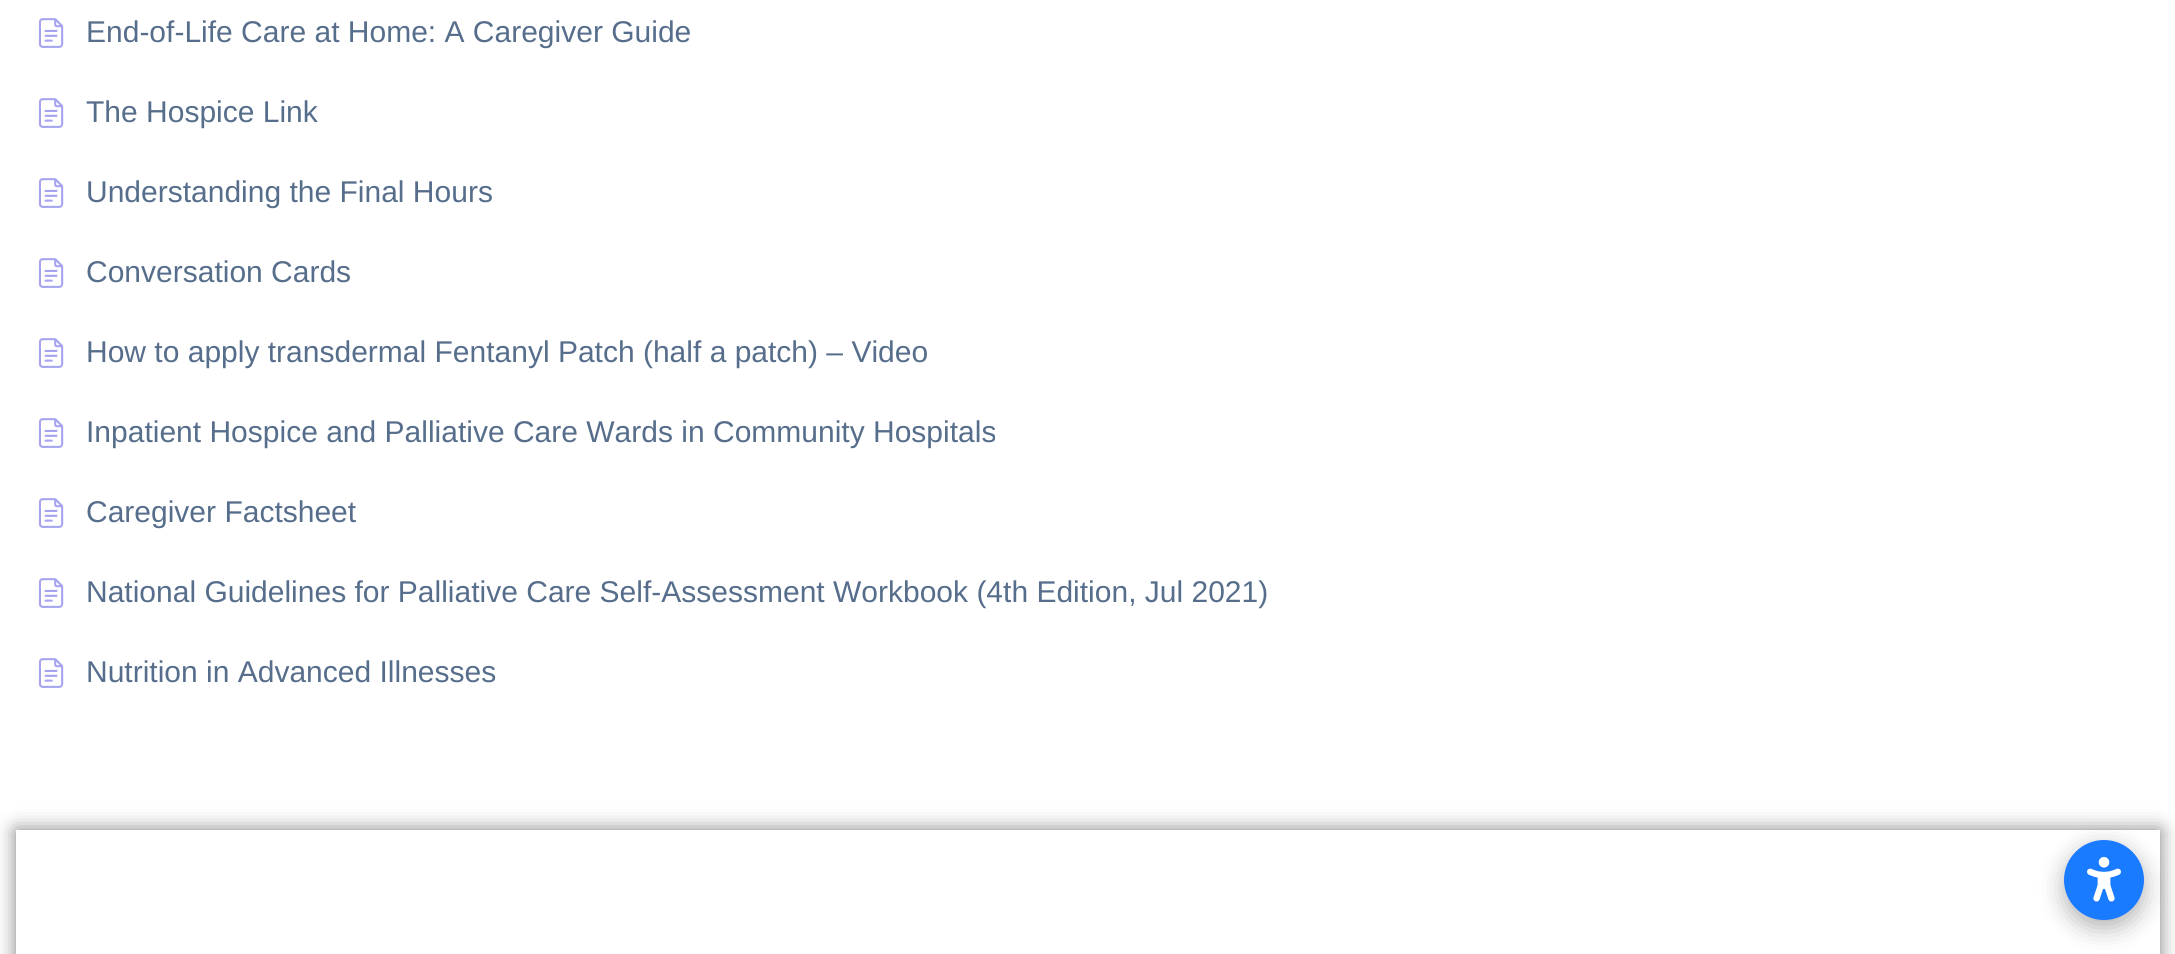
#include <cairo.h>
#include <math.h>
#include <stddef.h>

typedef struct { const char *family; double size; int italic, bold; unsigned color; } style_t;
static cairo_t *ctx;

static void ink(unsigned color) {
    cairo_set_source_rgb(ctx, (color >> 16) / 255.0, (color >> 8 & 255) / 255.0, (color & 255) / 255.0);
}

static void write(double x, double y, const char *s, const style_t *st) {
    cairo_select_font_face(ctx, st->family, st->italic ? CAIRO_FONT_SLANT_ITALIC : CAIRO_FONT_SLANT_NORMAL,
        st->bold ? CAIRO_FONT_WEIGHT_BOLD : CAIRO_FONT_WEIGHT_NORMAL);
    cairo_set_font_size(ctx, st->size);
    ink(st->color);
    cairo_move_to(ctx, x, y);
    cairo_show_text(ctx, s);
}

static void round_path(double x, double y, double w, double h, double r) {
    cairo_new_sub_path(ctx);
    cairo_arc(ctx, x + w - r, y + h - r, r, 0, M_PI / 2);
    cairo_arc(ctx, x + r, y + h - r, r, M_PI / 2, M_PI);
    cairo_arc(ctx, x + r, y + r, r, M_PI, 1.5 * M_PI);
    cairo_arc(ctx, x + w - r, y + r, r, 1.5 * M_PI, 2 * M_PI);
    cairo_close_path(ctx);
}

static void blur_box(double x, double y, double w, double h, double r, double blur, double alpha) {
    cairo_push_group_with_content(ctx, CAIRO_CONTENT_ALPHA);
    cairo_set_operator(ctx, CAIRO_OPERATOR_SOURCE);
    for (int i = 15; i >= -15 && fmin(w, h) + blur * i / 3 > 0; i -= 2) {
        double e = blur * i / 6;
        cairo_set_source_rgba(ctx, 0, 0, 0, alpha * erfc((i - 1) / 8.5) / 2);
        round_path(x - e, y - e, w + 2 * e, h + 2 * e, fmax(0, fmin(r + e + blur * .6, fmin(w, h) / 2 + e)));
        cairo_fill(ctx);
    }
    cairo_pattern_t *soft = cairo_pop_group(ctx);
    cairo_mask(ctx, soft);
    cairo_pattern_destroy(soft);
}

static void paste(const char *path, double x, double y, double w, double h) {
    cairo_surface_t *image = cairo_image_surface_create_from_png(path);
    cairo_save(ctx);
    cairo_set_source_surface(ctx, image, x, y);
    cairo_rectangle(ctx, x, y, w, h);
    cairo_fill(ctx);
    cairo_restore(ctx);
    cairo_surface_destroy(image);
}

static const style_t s1 = {"Liberation Sans", 30, 0, 0, 0x566e8b};

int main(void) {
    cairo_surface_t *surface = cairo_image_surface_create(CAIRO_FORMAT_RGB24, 2175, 954);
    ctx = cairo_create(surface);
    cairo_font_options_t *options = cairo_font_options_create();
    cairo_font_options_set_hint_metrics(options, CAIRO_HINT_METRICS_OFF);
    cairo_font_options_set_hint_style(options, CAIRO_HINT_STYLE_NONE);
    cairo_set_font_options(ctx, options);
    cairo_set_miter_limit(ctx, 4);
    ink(0xffffff);
    cairo_paint(ctx);
    paste("pic1.png", 38, 18, 26, 30);
    write(86, 42, "End-of-Life Care at Home: A Caregiver Guide", &s1);
    paste("pic1.png", 38, 98, 26, 30);
    write(86, 122, "The Hospice Link", &s1);
    paste("pic1.png", 38, 178, 26, 30);
    write(86, 202, "Understanding the Final Hours", &s1);
    paste("pic1.png", 38, 258, 26, 30);
    write(86, 282, "Conversation Cards", &s1);
    paste("pic1.png", 38, 338, 26, 30);
    write(86, 362, "How to apply transdermal Fentanyl Patch (half a patch) – Video", &s1);
    paste("pic1.png", 38, 418, 26, 30);
    write(86, 442, "Inpatient Hospice and Palliative Care Wards in Community Hospitals", &s1);
    paste("pic1.png", 38, 498, 26, 30);
    write(86, 522, "Caregiver Factsheet", &s1);
    paste("pic1.png", 38, 578, 26, 30);
    write(86, 602, "National Guidelines for Palliative Care Self-Assessment Workbook (4th Edition, Jul 2021)", &s1);
    paste("pic1.png", 38, 658, 26, 30);
    write(86, 682, "Nutrition in Advanced Illnesses", &s1);
    cairo_save(ctx);
    cairo_set_fill_rule(ctx, CAIRO_FILL_RULE_EVEN_ODD);
    cairo_new_path(ctx);
    cairo_move_to(ctx, 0, 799);
    cairo_line_to(ctx, 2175, 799);
    cairo_line_to(ctx, 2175, 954);
    cairo_line_to(ctx, 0, 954);
    cairo_close_path(ctx);
    cairo_move_to(ctx, 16, 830);
    cairo_line_to(ctx, 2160, 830);
    cairo_line_to(ctx, 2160, 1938);
    cairo_line_to(ctx, 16, 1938);
    cairo_close_path(ctx);
    cairo_clip(ctx);
    ink(0x000000);
    blur_box(16, 830, 2144, 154, 0, 10, 0.5);
    cairo_restore(ctx);
    ink(0x000000);
    blur_box(2064, 848, 80, 80, 40, 12, 0.3);
    ink(0x197bff);
    cairo_arc(ctx, 2104, 880, 40, 0, 2 * M_PI);
    cairo_fill(ctx);
    paste("pic2.png", 2087, 857, 34, 45);
    cairo_surface_write_to_png(surface, "screenshot.png");
    cairo_font_options_destroy(options);
    cairo_destroy(ctx);
    cairo_surface_destroy(surface);
    return 0;
}
